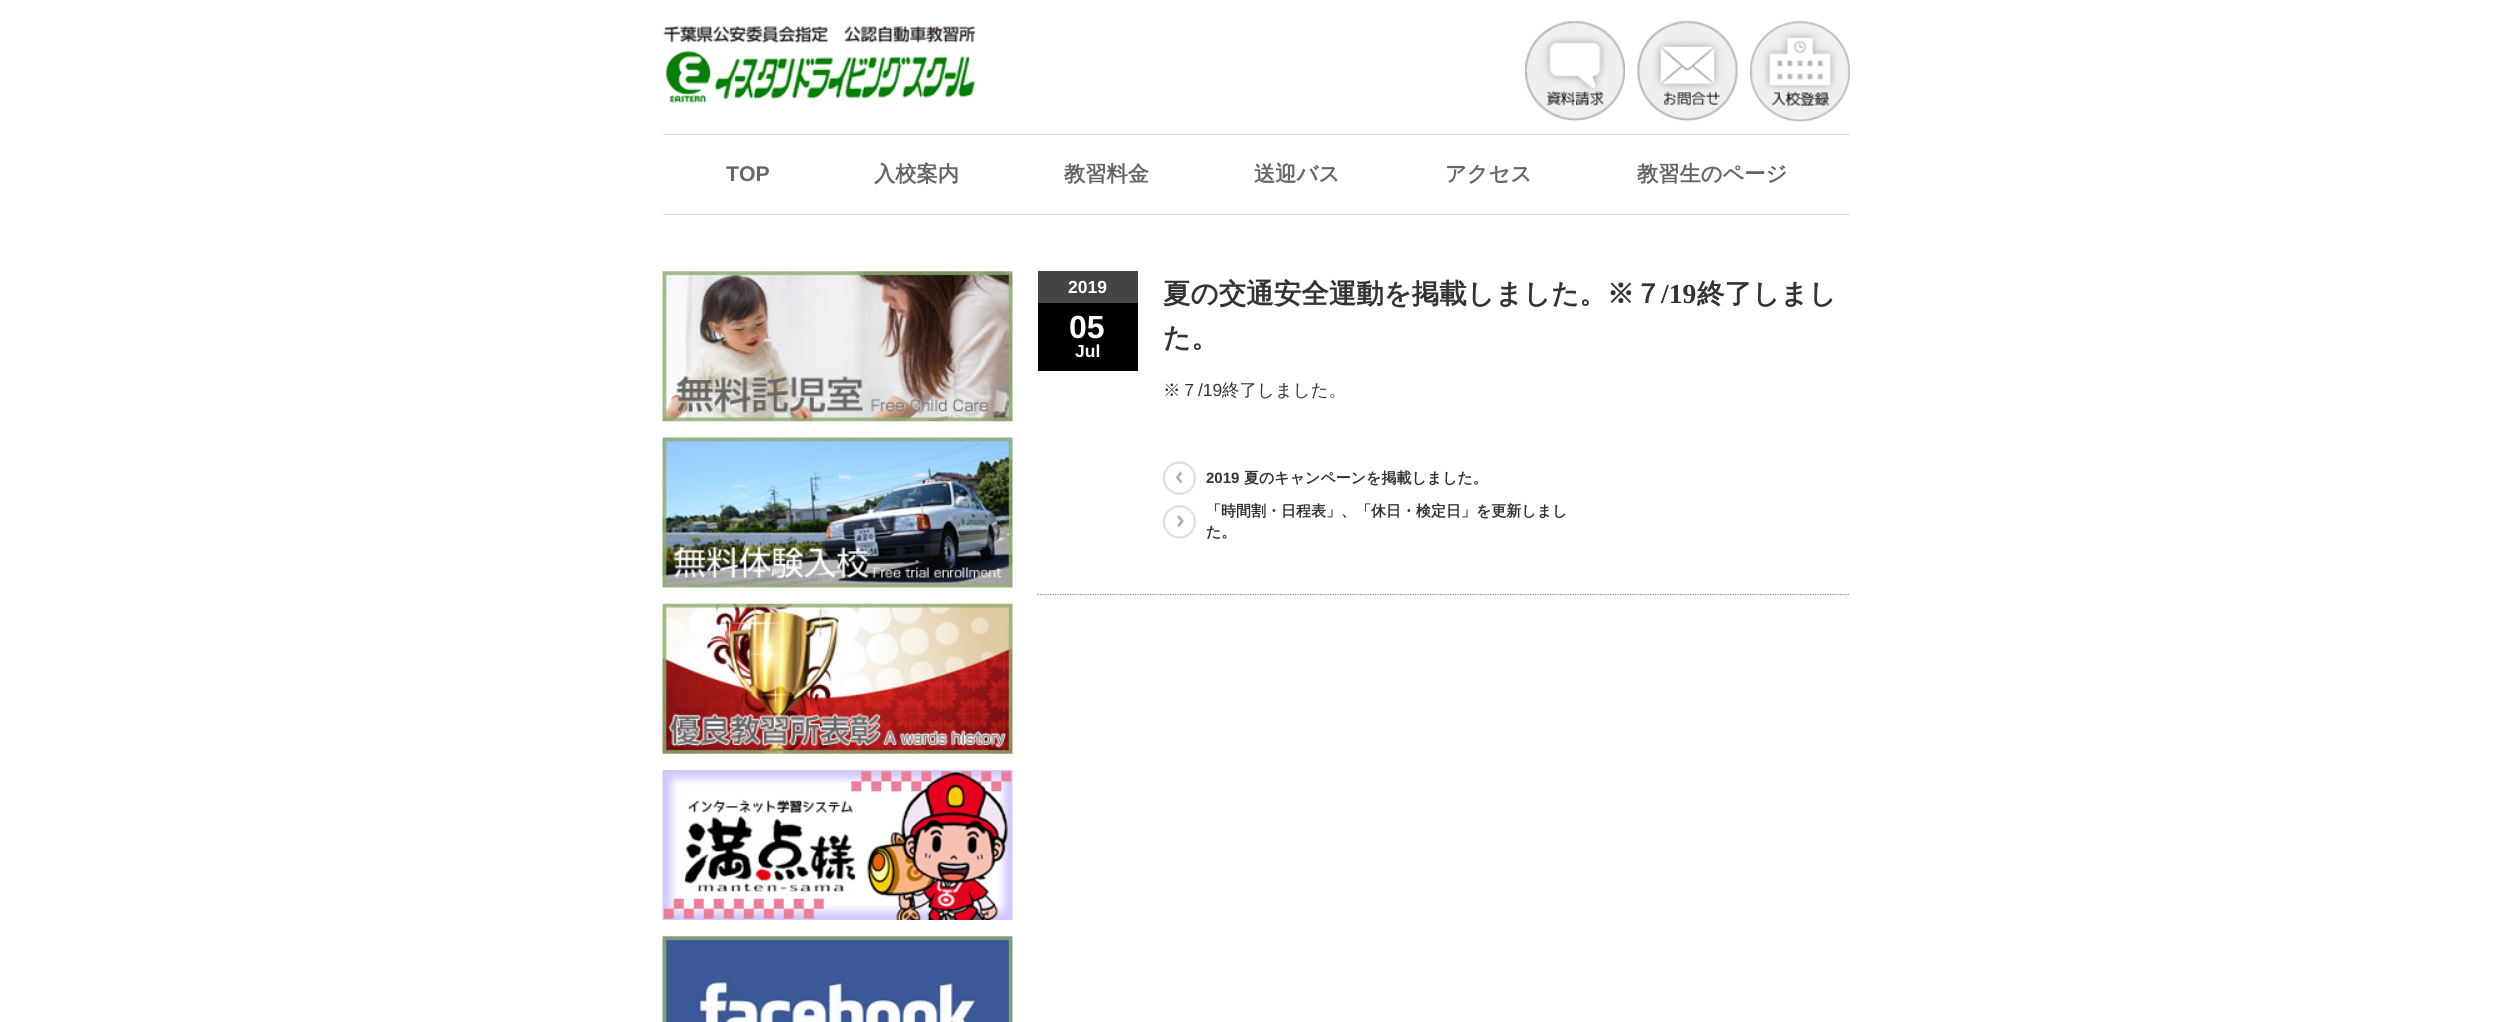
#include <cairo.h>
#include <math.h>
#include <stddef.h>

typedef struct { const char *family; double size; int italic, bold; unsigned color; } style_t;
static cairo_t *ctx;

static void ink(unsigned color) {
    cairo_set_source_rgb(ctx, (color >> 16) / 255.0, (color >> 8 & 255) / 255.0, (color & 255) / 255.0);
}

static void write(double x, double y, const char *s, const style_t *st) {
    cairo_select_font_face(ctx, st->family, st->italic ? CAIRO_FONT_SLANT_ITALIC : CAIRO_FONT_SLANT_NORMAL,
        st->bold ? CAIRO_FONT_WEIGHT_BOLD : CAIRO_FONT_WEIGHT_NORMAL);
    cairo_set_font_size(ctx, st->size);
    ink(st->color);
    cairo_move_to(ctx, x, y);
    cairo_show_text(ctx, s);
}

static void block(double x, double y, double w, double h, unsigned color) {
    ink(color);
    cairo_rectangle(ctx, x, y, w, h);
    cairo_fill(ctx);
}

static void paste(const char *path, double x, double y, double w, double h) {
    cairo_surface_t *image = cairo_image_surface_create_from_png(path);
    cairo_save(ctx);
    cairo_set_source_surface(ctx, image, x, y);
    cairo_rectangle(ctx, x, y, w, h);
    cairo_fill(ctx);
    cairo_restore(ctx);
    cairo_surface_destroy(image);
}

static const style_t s1 = {"Liberation Sans", 21.25, 0, 1, 0x666666};
static const style_t s2 = {"WenQuanYi Zen Hei", 21.25, 0, 1, 0x666666};
static const style_t s3 = {"Liberation Sans", 17.5, 0, 1, 0xffffff};
static const style_t s4 = {"Liberation Sans", 32, 0, 1, 0xffffff};
static const style_t s5 = {"WenQuanYi Zen Hei", 27.5, 0, 1, 0x333333};
static const style_t s6 = {"Liberation Serif", 27.5, 0, 1, 0x333333};
static const style_t s7 = {"WenQuanYi Zen Hei Medium", 17.5, 0, 0, 0x333333};
static const style_t s8 = {"Liberation Sans", 17.5, 0, 0, 0x333333};
static const style_t s9 = {"Liberation Sans", 15, 0, 1, 0x333333};
static const style_t s10 = {"WenQuanYi Zen Hei", 15, 0, 1, 0x333333};

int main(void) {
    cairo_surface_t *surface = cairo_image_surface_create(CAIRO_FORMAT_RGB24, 2512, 1022);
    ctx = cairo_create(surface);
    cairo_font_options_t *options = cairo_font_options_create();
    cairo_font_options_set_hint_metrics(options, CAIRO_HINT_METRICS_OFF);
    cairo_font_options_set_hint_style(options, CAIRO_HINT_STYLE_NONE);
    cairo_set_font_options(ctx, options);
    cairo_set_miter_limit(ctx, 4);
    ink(0xffffff);
    cairo_paint(ctx);
    block(663, 214, 1187, 1, 0xdddddd);
    paste("pic1.png", 663, 26, 313, 77);
    paste("pic2.png", 1525, 21, 100, 101);
    paste("pic3.png", 1637, 21, 101, 101);
    paste("pic4.png", 1750, 21, 100, 101);
    block(663, 134, 1187, 1, 0xdddddd);
    write(726, 181, "TOP", &s1);
    write(874, 181, "入校案内", &s2);
    write(1064, 181, "教習料金", &s2);
    write(1254, 181, "送迎バス", &s2);
    write(1445, 181, "アクセス", &s2);
    write(1637, 181, "教習生のページ", &s2);
    paste("pic5.png", 662, 271, 351, 151);
    paste("pic6.png", 662, 437, 351, 151);
    paste("pic7.png", 662, 603, 351, 151);
    paste("pic8.png", 662, 770, 351, 150);
    paste("pic9.png", 662, 936, 351, 86);
    cairo_new_path(ctx);
    cairo_move_to(ctx, 1037.5, 594.5);
    cairo_line_to(ctx, 1850, 594.5);
    ink(0x878787);
    cairo_set_line_width(ctx, 1.2);
    cairo_set_dash(ctx, (double[]){1.25, 1.25}, 2, 0);
    cairo_stroke(ctx);
    block(1038, 303, 100, 68, 0x000000);
    block(1038, 271, 100, 32, 0x444444);
    write(1068, 293, "2019", &s3);
    write(1069, 338, "05", &s4);
    write(1075, 357, "Jul", &s3);
    write(1163, 303, "夏の交通安全運動を掲載しました。※７", &s5);
    write(1661, 303, "/19", &s6);
    write(1697, 303, "終了しまし", &s5);
    write(1163, 347, "た。", &s5);
    write(1163, 396, "※７", &s7);
    write(1198, 396, "/19", &s8);
    write(1222, 396, "終了しました。", &s7);
    paste("pic10.png", 1162, 461, 35, 34);
    write(1206, 483, "2019", &s9);
    write(1244, 483, "夏のキャンペーンを掲載しました。", &s10);
    paste("pic11.png", 1162, 505, 35, 34);
    write(1206, 516, "「時間割・日程表」、「休日・検定日」を更新しまし", &s10);
    write(1206, 537, "た。", &s10);
    cairo_surface_write_to_png(surface, "screenshot.png");
    cairo_font_options_destroy(options);
    cairo_destroy(ctx);
    cairo_surface_destroy(surface);
    return 0;
}
